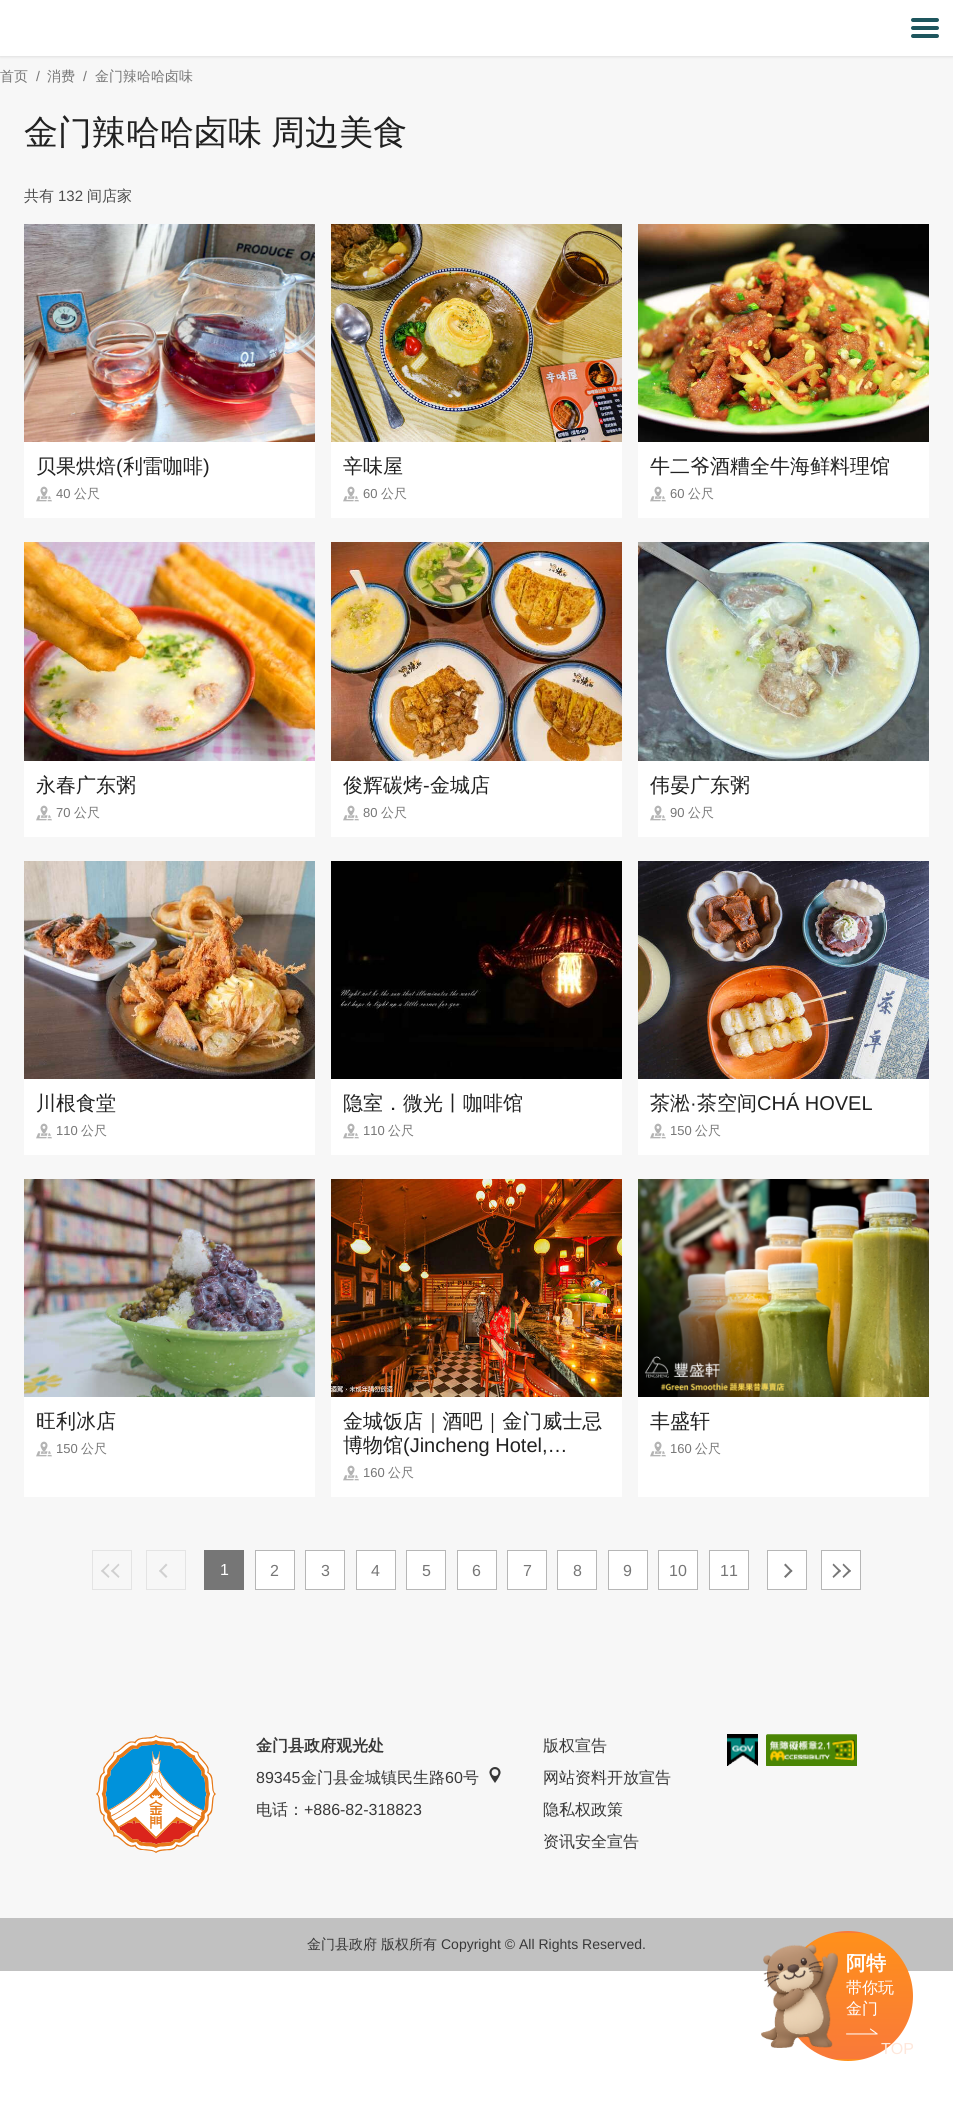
#include <cairo.h>
#include <math.h>
#include <stddef.h>

typedef struct { const char *family; double size; int italic, bold; unsigned color; } style_t;
static cairo_t *ctx;

static void ink(unsigned color) {
    cairo_set_source_rgb(ctx, (color >> 16) / 255.0, (color >> 8 & 255) / 255.0, (color & 255) / 255.0);
}

static void write(double x, double y, const char *s, const style_t *st) {
    cairo_select_font_face(ctx, st->family, st->italic ? CAIRO_FONT_SLANT_ITALIC : CAIRO_FONT_SLANT_NORMAL,
        st->bold ? CAIRO_FONT_WEIGHT_BOLD : CAIRO_FONT_WEIGHT_NORMAL);
    cairo_set_font_size(ctx, st->size);
    ink(st->color);
    cairo_move_to(ctx, x, y);
    cairo_show_text(ctx, s);
}

static void write_spaced(double x, double y, const char *s, double letter, double word) {
    cairo_move_to(ctx, x, y);
    while (*s) {
        char ch[5] = {0};
        int n = 0;
        do ch[n++] = *s++; while ((*s & 0xC0) == 0x80);
        cairo_show_text(ctx, ch);
        cairo_rel_move_to(ctx, letter + word * (*ch == ' '), 0);
    }
}

static void block(double x, double y, double w, double h, unsigned color) {
    ink(color);
    cairo_rectangle(ctx, x, y, w, h);
    cairo_fill(ctx);
}

static void round_path(double x, double y, double w, double h, double r) {
    cairo_new_sub_path(ctx);
    cairo_arc(ctx, x + w - r, y + h - r, r, 0, M_PI / 2);
    cairo_arc(ctx, x + r, y + h - r, r, M_PI / 2, M_PI);
    cairo_arc(ctx, x + r, y + r, r, M_PI, 1.5 * M_PI);
    cairo_arc(ctx, x + w - r, y + r, r, 1.5 * M_PI, 2 * M_PI);
    cairo_close_path(ctx);
}

static void blur_box(double x, double y, double w, double h, double r, double blur, double alpha) {
    cairo_push_group_with_content(ctx, CAIRO_CONTENT_ALPHA);
    cairo_set_operator(ctx, CAIRO_OPERATOR_SOURCE);
    for (int i = 15; i >= -15 && fmin(w, h) + blur * i / 3 > 0; i -= 2) {
        double e = blur * i / 6;
        cairo_set_source_rgba(ctx, 0, 0, 0, alpha * erfc((i - 1) / 8.5) / 2);
        round_path(x - e, y - e, w + 2 * e, h + 2 * e, fmax(0, fmin(r + e + blur * .6, fmin(w, h) / 2 + e)));
        cairo_fill(ctx);
    }
    cairo_pattern_t *soft = cairo_pop_group(ctx);
    cairo_mask(ctx, soft);
    cairo_pattern_destroy(soft);
}

static void paste(const char *path, double x, double y, double w, double h) {
    cairo_surface_t *image = cairo_image_surface_create_from_png(path);
    cairo_save(ctx);
    cairo_set_source_surface(ctx, image, x, y);
    cairo_rectangle(ctx, x, y, w, h);
    cairo_fill(ctx);
    cairo_restore(ctx);
    cairo_surface_destroy(image);
}

static const style_t s1 = {"WenQuanYi Zen Hei Medium", 14, 0, 0, 0x767676};
static const style_t s2 = {"Liberation Sans", 14, 0, 0, 0x767676};
static const style_t s3 = {"WenQuanYi Zen Hei Medium", 15, 0, 0, 0x4c4c4c};
static const style_t s4 = {"Liberation Sans", 15, 0, 0, 0x4c4c4c};
static const style_t s5 = {"WenQuanYi Zen Hei Medium", 20, 0, 0, 0x212121};
static const style_t s6 = {"Liberation Sans", 20, 0, 0, 0x212121};
static const style_t s7 = {"Liberation Sans", 13, 0, 0, 0x767676};
static const style_t s8 = {"WenQuanYi Zen Hei Medium", 13, 0, 0, 0x767676};
static const style_t s9 = {"Liberation Sans", 16, 0, 0, 0xffffff};
static const style_t s10 = {"Liberation Sans", 16, 0, 0, 0x767676};
static const style_t s11 = {"WenQuanYi Zen Hei", 16, 0, 1, 0x383838};
static const style_t s12 = {"Liberation Sans", 16, 0, 0, 0x383838};
static const style_t s13 = {"WenQuanYi Zen Hei Medium", 16, 0, 0, 0x383838};
static const style_t s14 = {"WenQuanYi Zen Hei Medium", 14, 0, 0, 0x383838};
static const style_t s15 = {"Liberation Sans", 14, 0, 0, 0x383838};
static const style_t s16 = {"WenQuanYi Zen Hei", 20, 0, 1, 0xffffff};
static const style_t s17 = {"WenQuanYi Zen Hei Medium", 16, 0, 0, 0xffffff};
static const style_t s18 = {"Liberation Sans", 16, 0, 0, 0xfee7db};

int main(void) {
    cairo_surface_t *surface = cairo_image_surface_create(CAIRO_FORMAT_RGB24, 953, 2109);
    ctx = cairo_create(surface);
    cairo_font_options_t *options = cairo_font_options_create();
    cairo_font_options_set_hint_metrics(options, CAIRO_HINT_METRICS_OFF);
    cairo_font_options_set_hint_style(options, CAIRO_HINT_STYLE_NONE);
    cairo_set_font_options(ctx, options);
    cairo_set_miter_limit(ctx, 4);
    cairo_pattern_t *gradient;
    ink(0xffffff);
    cairo_paint(ctx);
    block(0, 56, 953, 1862, 0xf7f7f7);
    ink(0x000000);
    blur_box(0, 0, 953, 56, 0, 2, 0.16);
    block(0, 0, 953, 56, 0xffffff);
    ink(0x1e565e);
    round_path(911, 18, 28, 4, 2);
    cairo_fill(ctx);
    round_path(911, 26, 28, 4, 2);
    cairo_fill(ctx);
    round_path(911, 34, 28, 4, 2);
    cairo_fill(ctx);
    write(0, 81, "首页", &s1);
    write(36, 81, "/", &s2);
    write(47, 81, "消费", &s1);
    write(83, 81, "/", &s2);
    write(95, 81, "金门辣哈哈卤味", &s1);
    cairo_set_font_size(ctx, 34);
    ink(0x212121);
    write_spaced(24, 144, "金门辣哈哈卤味 周边美食", 0, -1);
    write(24, 201, "共有", &s3);
    write(58, 201, "132", &s4);
    write(87, 201, "间店家", &s3);
    paste("pic1.png", 24, 224, 291, 218);
    block(24, 442, 291, 76, 0xffffff);
    write(36, 473, "贝果烘焙", &s5);
    write(116, 473, "(", &s6);
    write(123, 473, "利雷咖啡", &s5);
    write(203, 473, ")", &s6);
    paste("pic2.png", 36, 486, 16, 16);
    write(56, 498, "40", &s7);
    write(74, 498, "公尺", &s8);
    paste("pic3.png", 331, 224, 291, 218);
    block(331, 442, 291, 76, 0xffffff);
    write(343, 473, "辛味屋", &s5);
    paste("pic2.png", 343, 486, 16, 16);
    write(363, 498, "60", &s7);
    write(381, 498, "公尺", &s8);
    paste("pic4.png", 638, 224, 291, 218);
    block(638, 442, 291, 76, 0xffffff);
    write(650, 473, "牛二爷酒糟全牛海鲜料理馆", &s5);
    paste("pic2.png", 650, 486, 16, 16);
    write(670, 498, "60", &s7);
    write(688, 498, "公尺", &s8);
    paste("pic5.png", 24, 542, 291, 219);
    block(24, 761, 291, 76, 0xffffff);
    write(36, 792, "永春广东粥", &s5);
    paste("pic2.png", 36, 805, 16, 16);
    write(56, 817, "70", &s7);
    write(74, 817, "公尺", &s8);
    paste("pic6.png", 331, 542, 291, 219);
    block(331, 761, 291, 76, 0xffffff);
    write(343, 792, "俊辉碳烤", &s5);
    write(423, 792, "-", &s6);
    write(430, 792, "金城店", &s5);
    paste("pic2.png", 343, 805, 16, 16);
    write(363, 817, "80", &s7);
    write(381, 817, "公尺", &s8);
    paste("pic7.png", 638, 542, 291, 219);
    block(638, 761, 291, 76, 0xffffff);
    write(650, 792, "伟晏广东粥", &s5);
    paste("pic2.png", 650, 805, 16, 16);
    write(670, 817, "90", &s7);
    write(688, 817, "公尺", &s8);
    paste("pic8.png", 24, 861, 291, 218);
    block(24, 1079, 291, 76, 0xffffff);
    write(36, 1110, "川根食堂", &s5);
    paste("pic2.png", 36, 1123, 16, 16);
    write(56, 1135, "110", &s7);
    write(81, 1135, "公尺", &s8);
    paste("pic9.png", 331, 861, 291, 218);
    block(331, 1079, 291, 76, 0xffffff);
    write(343, 1110, "隐室．微光丨咖啡馆", &s5);
    paste("pic2.png", 343, 1123, 16, 16);
    write(363, 1135, "110", &s7);
    write(388, 1135, "公尺", &s8);
    paste("pic10.png", 638, 861, 291, 218);
    block(638, 1079, 291, 76, 0xffffff);
    write(650, 1110, "茶淞", &s5);
    write(690, 1110, "·", &s6);
    write(697, 1110, "茶空间", &s5);
    write(757, 1110, "CHÁ HOVEL", &s6);
    paste("pic2.png", 650, 1123, 16, 16);
    write(670, 1135, "150", &s7);
    write(695, 1135, "公尺", &s8);
    paste("pic11.png", 24, 1179, 291, 218);
    block(24, 1397, 291, 100, 0xffffff);
    write(36, 1428, "旺利冰店", &s5);
    paste("pic2.png", 36, 1441, 16, 16);
    write(56, 1453, "150", &s7);
    write(81, 1453, "公尺", &s8);
    paste("pic12.png", 331, 1179, 291, 218);
    block(331, 1397, 291, 100, 0xffffff);
    write(343, 1428, "金城饭店｜酒吧｜金门威士忌", &s5);
    write(343, 1452, "博物馆", &s5);
    write(403, 1452, "(Jincheng Hotel,…", &s6);
    paste("pic2.png", 343, 1465, 16, 16);
    write(363, 1477, "160", &s7);
    write(388, 1477, "公尺", &s8);
    paste("pic13.png", 638, 1179, 291, 218);
    block(638, 1397, 291, 100, 0xffffff);
    write(650, 1428, "丰盛轩", &s5);
    paste("pic2.png", 650, 1441, 16, 16);
    write(670, 1453, "160", &s7);
    write(695, 1453, "公尺", &s8);
    cairo_rectangle(ctx, 92.5, 1550.5, 39, 39);
    ink(0xe4e4e4);
    cairo_set_line_width(ctx, 1);
    cairo_stroke(ctx);
    ink(0xd0d0d0);
    cairo_new_path(ctx);
    cairo_move_to(ctx, 109.5, 1576.5);
    cairo_line_to(ctx, 108.5, 1578);
    cairo_line_to(ctx, 101, 1571);
    cairo_line_to(ctx, 102.5, 1569.5);
    cairo_close_path(ctx);
    cairo_fill(ctx);
    cairo_new_path(ctx);
    cairo_move_to(ctx, 109.5, 1565);
    cairo_line_to(ctx, 102.5, 1572);
    cairo_line_to(ctx, 101, 1571);
    cairo_line_to(ctx, 108.5, 1563.5);
    cairo_close_path(ctx);
    cairo_move_to(ctx, 119.5, 1576.5);
    cairo_line_to(ctx, 118.5, 1578);
    cairo_line_to(ctx, 111, 1571);
    cairo_line_to(ctx, 112.5, 1569.5);
    cairo_close_path(ctx);
    cairo_fill(ctx);
    cairo_new_path(ctx);
    cairo_move_to(ctx, 119.5, 1565);
    cairo_line_to(ctx, 112.5, 1572);
    cairo_line_to(ctx, 111, 1571);
    cairo_line_to(ctx, 118.5, 1563.5);
    cairo_close_path(ctx);
    cairo_fill(ctx);
    cairo_rectangle(ctx, 146.5, 1550.5, 39, 39);
    ink(0xe4e4e4);
    cairo_stroke(ctx);
    ink(0xd0d0d0);
    cairo_new_path(ctx);
    cairo_move_to(ctx, 167.5, 1576.5);
    cairo_line_to(ctx, 166, 1578);
    cairo_line_to(ctx, 159, 1571);
    cairo_line_to(ctx, 160.5, 1569.5);
    cairo_close_path(ctx);
    cairo_fill(ctx);
    cairo_new_path(ctx);
    cairo_move_to(ctx, 167.5, 1565);
    cairo_line_to(ctx, 160.5, 1572);
    cairo_line_to(ctx, 159, 1571);
    cairo_line_to(ctx, 166, 1563.5);
    cairo_close_path(ctx);
    cairo_fill(ctx);
    block(204, 1550, 40, 40, 0x767676);
    write(220, 1575, "1", &s9);
    cairo_rectangle(ctx, 255.5, 1550.5, 39, 39);
    cairo_fill_preserve(ctx);
    ink(0xb6b6b6);
    cairo_stroke(ctx);
    write(270, 1576, "2", &s10);
    ink(0xffffff);
    cairo_rectangle(ctx, 305.5, 1550.5, 39, 39);
    cairo_fill_preserve(ctx);
    ink(0xb6b6b6);
    cairo_stroke(ctx);
    write(321, 1576, "3", &s10);
    ink(0xffffff);
    cairo_rectangle(ctx, 356.5, 1550.5, 39, 39);
    cairo_fill_preserve(ctx);
    ink(0xb6b6b6);
    cairo_stroke(ctx);
    write(371, 1576, "4", &s10);
    ink(0xffffff);
    cairo_rectangle(ctx, 406.5, 1550.5, 39, 39);
    cairo_fill_preserve(ctx);
    ink(0xb6b6b6);
    cairo_stroke(ctx);
    write(422, 1576, "5", &s10);
    ink(0xffffff);
    cairo_rectangle(ctx, 457.5, 1550.5, 39, 39);
    cairo_fill_preserve(ctx);
    ink(0xb6b6b6);
    cairo_stroke(ctx);
    write(472, 1576, "6", &s10);
    ink(0xffffff);
    cairo_rectangle(ctx, 507.5, 1550.5, 39, 39);
    cairo_fill_preserve(ctx);
    ink(0xb6b6b6);
    cairo_stroke(ctx);
    write(523, 1576, "7", &s10);
    ink(0xffffff);
    cairo_rectangle(ctx, 557.5, 1550.5, 39, 39);
    cairo_fill_preserve(ctx);
    ink(0xb6b6b6);
    cairo_stroke(ctx);
    write(573, 1576, "8", &s10);
    ink(0xffffff);
    cairo_rectangle(ctx, 608.5, 1550.5, 39, 39);
    cairo_fill_preserve(ctx);
    ink(0xb6b6b6);
    cairo_stroke(ctx);
    write(623, 1576, "9", &s10);
    ink(0xffffff);
    cairo_rectangle(ctx, 658.5, 1550.5, 39, 39);
    cairo_fill_preserve(ctx);
    ink(0xb6b6b6);
    cairo_stroke(ctx);
    write(669, 1576, "10", &s10);
    ink(0xffffff);
    cairo_rectangle(ctx, 709.5, 1550.5, 39, 39);
    cairo_fill_preserve(ctx);
    ink(0xb6b6b6);
    cairo_stroke(ctx);
    write(720, 1576, "11", &s10);
    ink(0xffffff);
    cairo_rectangle(ctx, 767.5, 1550.5, 39, 39);
    cairo_fill_preserve(ctx);
    ink(0xb6b6b6);
    cairo_stroke(ctx);
    ink(0x767676);
    cairo_new_path(ctx);
    cairo_move_to(ctx, 784, 1565);
    cairo_line_to(ctx, 785.5, 1563.5);
    cairo_line_to(ctx, 792.5, 1571);
    cairo_line_to(ctx, 791, 1572);
    cairo_close_path(ctx);
    cairo_fill(ctx);
    cairo_new_path(ctx);
    cairo_move_to(ctx, 784, 1576.5);
    cairo_line_to(ctx, 791, 1569.5);
    cairo_line_to(ctx, 792.5, 1571);
    cairo_line_to(ctx, 785.5, 1578);
    cairo_close_path(ctx);
    cairo_fill(ctx);
    ink(0xffffff);
    cairo_rectangle(ctx, 821.5, 1550.5, 39, 39);
    cairo_fill_preserve(ctx);
    ink(0xb6b6b6);
    cairo_stroke(ctx);
    ink(0x767676);
    cairo_new_path(ctx);
    cairo_move_to(ctx, 832.5, 1565);
    cairo_line_to(ctx, 833.5, 1563.5);
    cairo_line_to(ctx, 841, 1571);
    cairo_line_to(ctx, 839.5, 1572);
    cairo_close_path(ctx);
    cairo_fill(ctx);
    cairo_new_path(ctx);
    cairo_move_to(ctx, 832.5, 1576.5);
    cairo_line_to(ctx, 839.5, 1569.5);
    cairo_line_to(ctx, 841, 1571);
    cairo_line_to(ctx, 833.5, 1578);
    cairo_close_path(ctx);
    cairo_move_to(ctx, 842.5, 1565);
    cairo_line_to(ctx, 843.5, 1563.5);
    cairo_line_to(ctx, 851, 1571);
    cairo_line_to(ctx, 849.5, 1572);
    cairo_close_path(ctx);
    cairo_fill(ctx);
    cairo_new_path(ctx);
    cairo_move_to(ctx, 842.5, 1576.5);
    cairo_line_to(ctx, 849.5, 1569.5);
    cairo_line_to(ctx, 851, 1571);
    cairo_line_to(ctx, 843.5, 1578);
    cairo_close_path(ctx);
    cairo_fill(ctx);
    paste("pic14.png", 96, 1735, 120, 118);
    write(256, 1751, "金门县政府观光处", &s11);
    write(256, 1783, "89345", &s12);
    write(301, 1783, "金门县金城镇民生路", &s13);
    write(445, 1783, "60", &s12);
    write(463, 1783, "号", &s13);
    paste("pic15.png", 489, 1767, 12, 16);
    write(256, 1815, "电话：", &s13);
    write(304, 1815, "+886-82-318823", &s12);
    write(543, 1751, "版权宣告", &s13);
    write(543, 1783, "网站资料开放宣告", &s13);
    write(543, 1815, "隐私权政策", &s13);
    write(543, 1847, "资讯安全宣告", &s13);
    paste("pic16.png", 727, 1734, 31, 32);
    paste("pic17.png", 766, 1734, 91, 32);
    block(0, 1918, 953, 53, 0xc1c1c1);
    write(307, 1949, "金门县政府", &s14);
    write(381, 1949, "版权所有", &s14);
    write(441, 1949, "Copyright © All Rights Reserved.", &s15);
    cairo_save(ctx);
    round_path(783, 1931, 130, 130, 65);
    cairo_clip(ctx);
    gradient = cairo_pattern_create_linear(848, 1807, 848, 1933);
    cairo_pattern_add_color_stop_rgba(gradient, 0, 1, 0.565, 0.102, 1);
    cairo_pattern_add_color_stop_rgba(gradient, 1, 0.976, 0.475, 0.227, 1);
    cairo_set_source(ctx, gradient);
    cairo_pattern_destroy(gradient);
    cairo_rectangle(ctx, 832, 1931, 32, 2);
    cairo_fill(ctx);
    gradient = cairo_pattern_create_linear(848, 1933, 848, 2059);
    cairo_pattern_add_color_stop_rgba(gradient, 0, 1, 0.565, 0.102, 1);
    cairo_pattern_add_color_stop_rgba(gradient, 1, 0.976, 0.475, 0.227, 1);
    cairo_set_source(ctx, gradient);
    cairo_pattern_destroy(gradient);
    cairo_rectangle(ctx, 797, 1933, 116, 126);
    cairo_fill(ctx);
    gradient = cairo_pattern_create_linear(848, 2059, 848, 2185);
    cairo_pattern_add_color_stop_rgba(gradient, 0, 1, 0.565, 0.102, 1);
    cairo_pattern_add_color_stop_rgba(gradient, 1, 0.976, 0.475, 0.227, 1);
    cairo_set_source(ctx, gradient);
    cairo_pattern_destroy(gradient);
    cairo_rectangle(ctx, 832, 2059, 32, 2);
    cairo_fill(ctx);
    cairo_restore(ctx);
    paste("pic18.png", 761, 1944, 77, 104);
    write(846, 1970, "阿特", &s16);
    write(846, 1993, "带你玩", &s17);
    write(846, 2014, "金门", &s17);
    paste("pic19.png", 846, 2028, 32, 7);
    write(881, 2054, "TOP", &s18);
    cairo_surface_write_to_png(surface, "screenshot.png");
    cairo_font_options_destroy(options);
    cairo_destroy(ctx);
    cairo_surface_destroy(surface);
    return 0;
}
